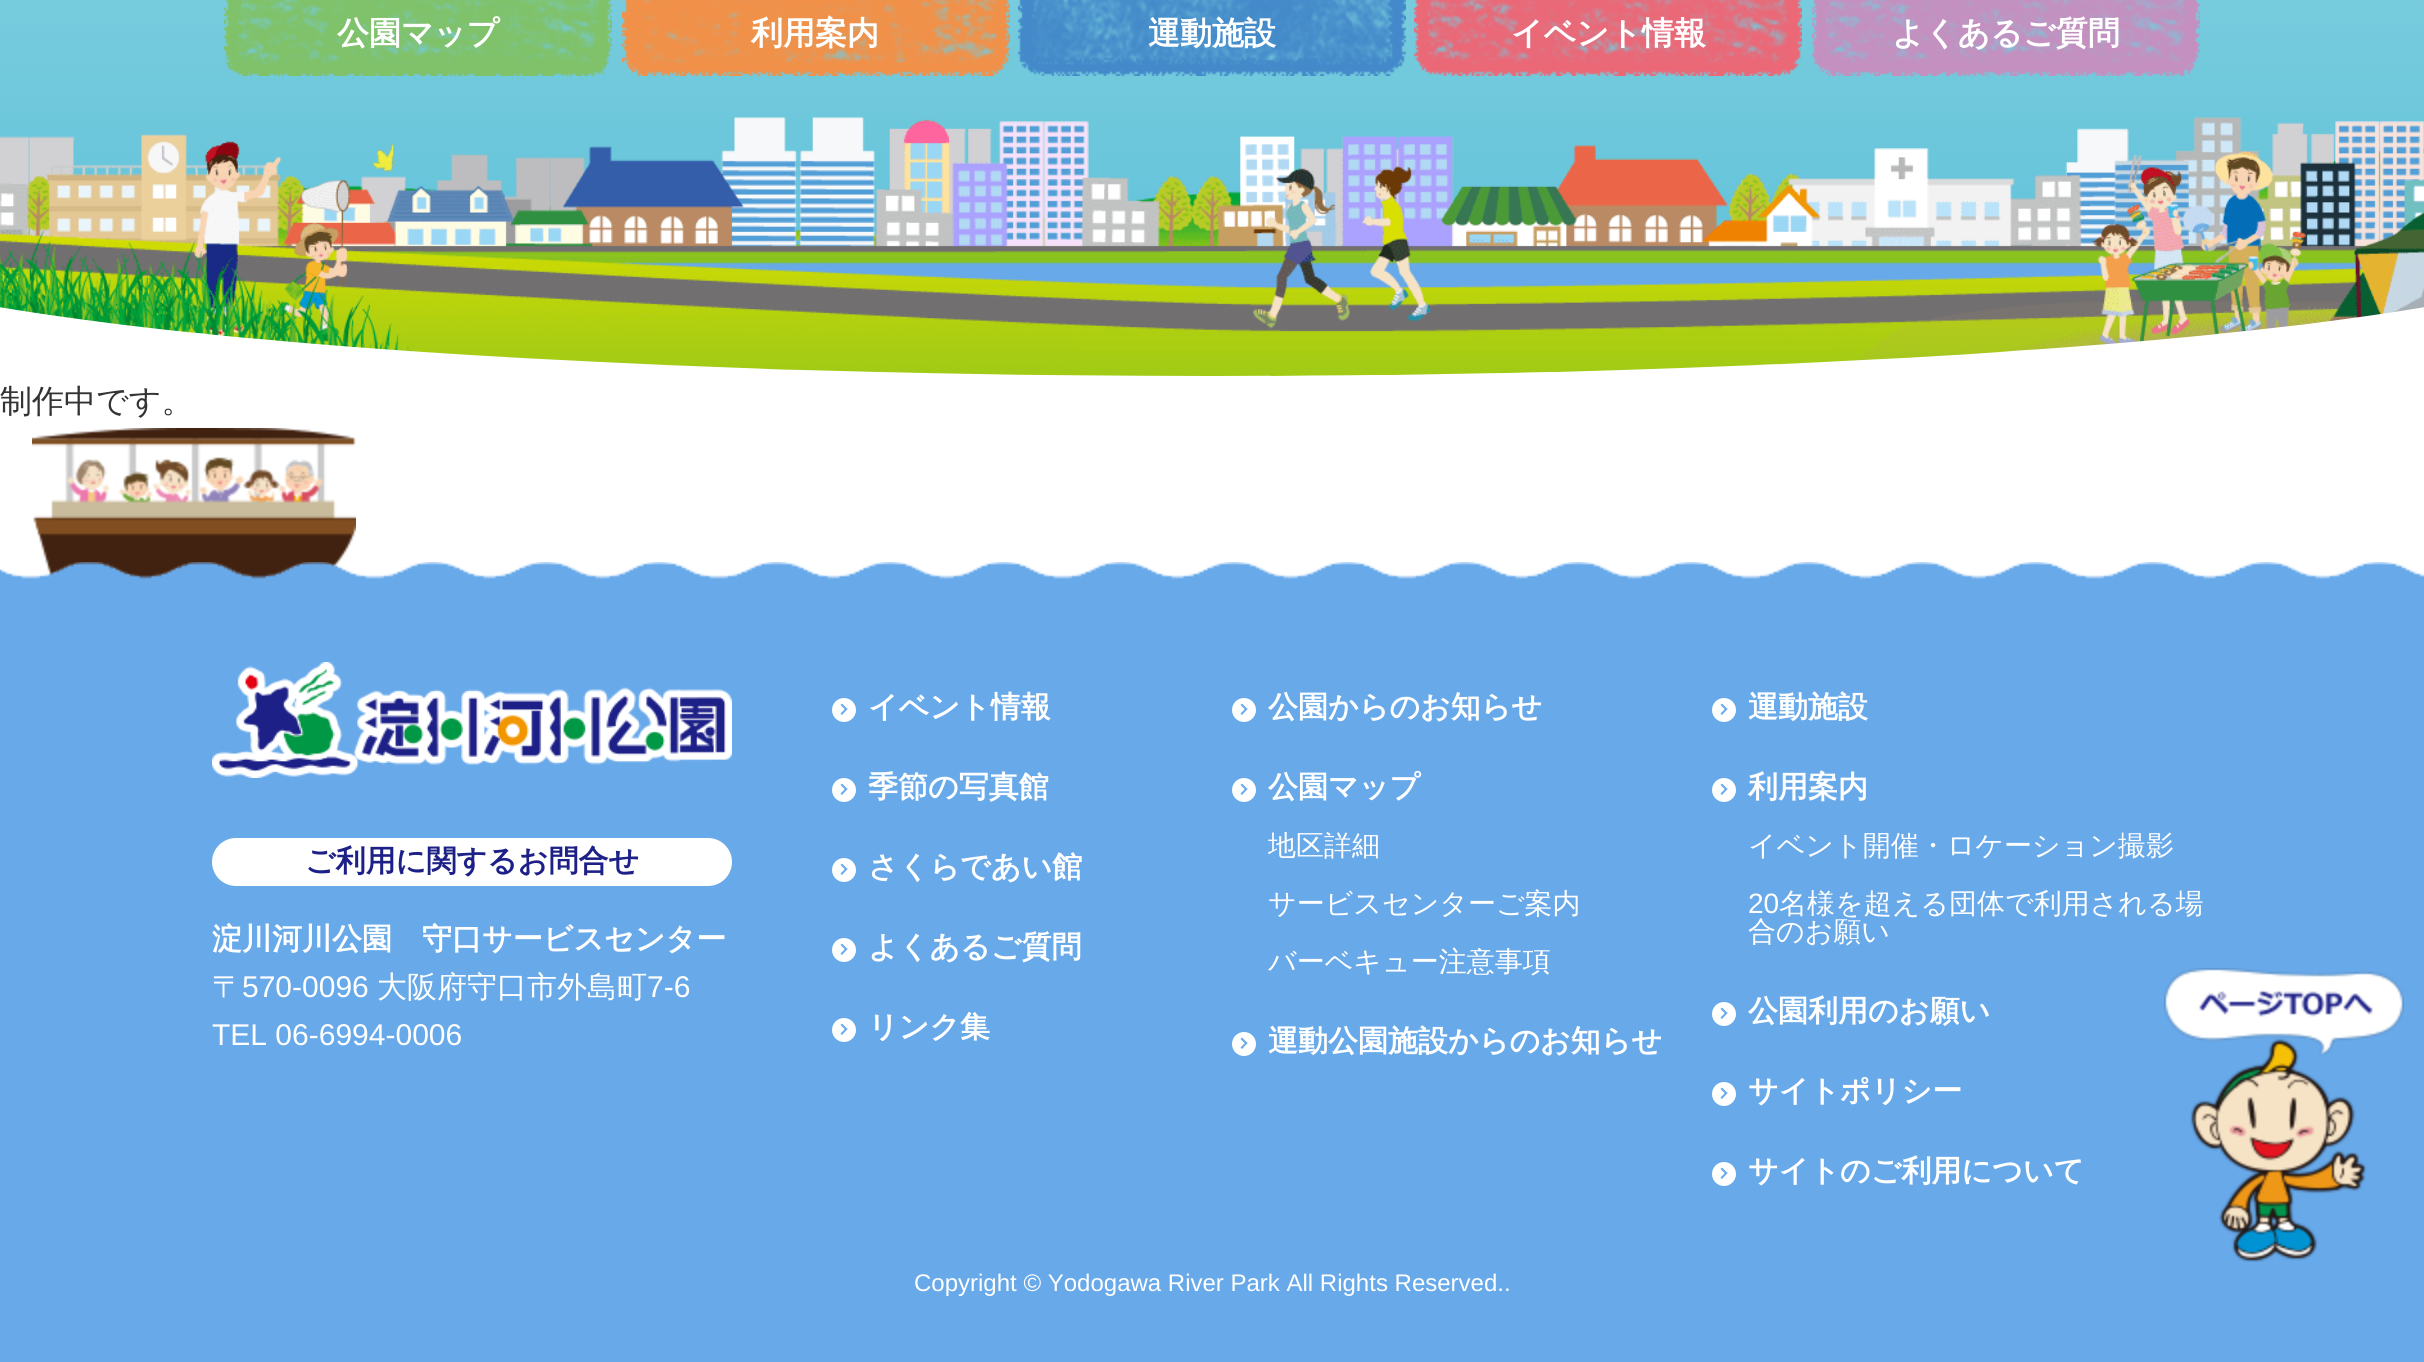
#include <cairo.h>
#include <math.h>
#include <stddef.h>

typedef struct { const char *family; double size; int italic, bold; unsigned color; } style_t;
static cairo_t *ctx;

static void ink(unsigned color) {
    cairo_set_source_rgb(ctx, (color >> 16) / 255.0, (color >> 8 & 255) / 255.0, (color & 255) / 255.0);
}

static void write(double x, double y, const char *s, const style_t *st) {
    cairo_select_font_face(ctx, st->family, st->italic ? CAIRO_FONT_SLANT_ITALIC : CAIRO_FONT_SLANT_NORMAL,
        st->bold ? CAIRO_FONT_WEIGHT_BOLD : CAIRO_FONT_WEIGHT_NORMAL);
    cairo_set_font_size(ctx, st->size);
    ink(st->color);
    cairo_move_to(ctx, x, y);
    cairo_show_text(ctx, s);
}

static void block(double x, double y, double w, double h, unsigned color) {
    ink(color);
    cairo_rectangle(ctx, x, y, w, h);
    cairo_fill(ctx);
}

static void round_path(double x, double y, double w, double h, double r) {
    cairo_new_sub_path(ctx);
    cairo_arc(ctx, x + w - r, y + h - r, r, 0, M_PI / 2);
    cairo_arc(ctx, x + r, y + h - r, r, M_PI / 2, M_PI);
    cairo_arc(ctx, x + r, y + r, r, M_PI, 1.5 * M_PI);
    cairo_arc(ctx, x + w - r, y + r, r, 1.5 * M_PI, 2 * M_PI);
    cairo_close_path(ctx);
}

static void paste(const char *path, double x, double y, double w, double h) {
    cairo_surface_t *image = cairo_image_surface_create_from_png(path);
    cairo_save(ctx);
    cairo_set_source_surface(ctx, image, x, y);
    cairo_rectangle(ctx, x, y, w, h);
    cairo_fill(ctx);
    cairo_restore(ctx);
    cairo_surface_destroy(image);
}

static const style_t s1 = {"WenQuanYi Zen Hei", 32, 0, 1, 0xffffff};
static const style_t s2 = {"WenQuanYi Zen Hei Medium", 32, 0, 0, 0x333333};
static const style_t s3 = {"WenQuanYi Zen Hei", 30, 0, 1, 0x1d2087};
static const style_t s4 = {"WenQuanYi Zen Hei", 30, 0, 1, 0xffffff};
static const style_t s5 = {"WenQuanYi Zen Hei Medium", 30, 0, 0, 0xffffff};
static const style_t s6 = {"Liberation Sans", 30, 0, 0, 0xffffff};
static const style_t s7 = {"WenQuanYi Zen Hei Medium", 28, 0, 0, 0xffffff};
static const style_t s8 = {"Liberation Sans", 28, 0, 0, 0xffffff};
static const style_t s9 = {"Liberation Sans", 24, 0, 0, 0xffffff};

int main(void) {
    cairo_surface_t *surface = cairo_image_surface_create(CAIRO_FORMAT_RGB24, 2424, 1362);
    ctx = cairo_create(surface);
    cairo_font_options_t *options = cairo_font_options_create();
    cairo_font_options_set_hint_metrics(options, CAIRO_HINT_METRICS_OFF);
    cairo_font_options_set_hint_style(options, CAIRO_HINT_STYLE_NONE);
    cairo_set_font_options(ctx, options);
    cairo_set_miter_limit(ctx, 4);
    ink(0xffffff);
    cairo_paint(ctx);
    paste("pic1.png", 0, 0, 2424, 376);
    paste("pic2.png", 224, 0, 388, 76);
    write(337, 44, "公園マップ", &s1);
    paste("pic3.png", 622, 0, 388, 76);
    write(751, 44, "利用案内", &s1);
    paste("pic4.png", 1018, 0, 388, 76);
    write(1148, 44, "運動施設", &s1);
    paste("pic5.png", 1414, 0, 388, 76);
    write(1511, 44, "イベント情報", &s1);
    paste("pic6.png", 1812, 0, 388, 76);
    write(1892, 44, "よくあるご質問", &s1);
    write(0, 412, "制作中です。", &s2);
    paste("pic7.png", 32, 428, 324, 151);
    paste("pic8.png", 0, 562, 2424, 40);
    block(0, 602, 2424, 760, 0x68a9ea);
    paste("pic9.png", 212, 662, 520, 116);
    ink(0xffffff);
    round_path(212, 838, 520, 48, 24);
    cairo_fill(ctx);
    write(305, 871, "ご利用に関するお問合せ", &s3);
    write(212, 949, "淀川河川公園　守口サービスセンター", &s4);
    write(212, 997, "〒", &s5);
    write(242, 997, "570-0096", &s6);
    write(377, 997, "大阪府守口市外島町", &s5);
    write(647, 997, "7-6", &s6);
    write(212, 1045, "TEL 06-6994-0006", &s6);
    cairo_new_path(ctx);
    cairo_arc(ctx, 844, 710, 12, 0, 2 * M_PI);
    cairo_fill(ctx);
    write(868, 717, "イベント情報", &s4);
    ink(0x68a9ea);
    cairo_new_path(ctx);
    cairo_move_to(ctx, 842, 703.5);
    cairo_line_to(ctx, 847.5, 709);
    cairo_line_to(ctx, 846, 710.5);
    cairo_line_to(ctx, 840.5, 705);
    cairo_close_path(ctx);
    cairo_fill(ctx);
    cairo_new_path(ctx);
    cairo_move_to(ctx, 846, 708);
    cairo_line_to(ctx, 847.5, 709);
    cairo_line_to(ctx, 842, 715);
    cairo_line_to(ctx, 840.5, 713.5);
    cairo_close_path(ctx);
    cairo_fill(ctx);
    ink(0xffffff);
    cairo_arc(ctx, 844, 790, 12, 0, 2 * M_PI);
    cairo_fill(ctx);
    write(868, 797, "季節の写真館", &s4);
    ink(0x68a9ea);
    cairo_new_path(ctx);
    cairo_move_to(ctx, 842, 783.5);
    cairo_line_to(ctx, 847.5, 789);
    cairo_line_to(ctx, 846, 790.5);
    cairo_line_to(ctx, 840.5, 785);
    cairo_close_path(ctx);
    cairo_fill(ctx);
    cairo_new_path(ctx);
    cairo_move_to(ctx, 846, 788);
    cairo_line_to(ctx, 847.5, 789);
    cairo_line_to(ctx, 842, 795);
    cairo_line_to(ctx, 840.5, 793.5);
    cairo_close_path(ctx);
    cairo_fill(ctx);
    ink(0xffffff);
    cairo_arc(ctx, 844, 870, 12, 0, 2 * M_PI);
    cairo_fill(ctx);
    write(868, 877, "さくらであい館", &s4);
    ink(0x68a9ea);
    cairo_new_path(ctx);
    cairo_move_to(ctx, 842, 863.5);
    cairo_line_to(ctx, 847.5, 869);
    cairo_line_to(ctx, 846, 870.5);
    cairo_line_to(ctx, 840.5, 865);
    cairo_close_path(ctx);
    cairo_fill(ctx);
    cairo_new_path(ctx);
    cairo_move_to(ctx, 846, 868);
    cairo_line_to(ctx, 847.5, 869);
    cairo_line_to(ctx, 842, 875);
    cairo_line_to(ctx, 840.5, 873.5);
    cairo_close_path(ctx);
    cairo_fill(ctx);
    ink(0xffffff);
    cairo_arc(ctx, 844, 950, 12, 0, 2 * M_PI);
    cairo_fill(ctx);
    write(868, 957, "よくあるご質問", &s4);
    ink(0x68a9ea);
    cairo_new_path(ctx);
    cairo_move_to(ctx, 842, 943.5);
    cairo_line_to(ctx, 847.5, 949);
    cairo_line_to(ctx, 846, 950.5);
    cairo_line_to(ctx, 840.5, 945);
    cairo_close_path(ctx);
    cairo_fill(ctx);
    cairo_new_path(ctx);
    cairo_move_to(ctx, 846, 948);
    cairo_line_to(ctx, 847.5, 949);
    cairo_line_to(ctx, 842, 955);
    cairo_line_to(ctx, 840.5, 953.5);
    cairo_close_path(ctx);
    cairo_fill(ctx);
    ink(0xffffff);
    cairo_arc(ctx, 844, 1030, 12, 0, 2 * M_PI);
    cairo_fill(ctx);
    write(868, 1037, "リンク集", &s4);
    ink(0x68a9ea);
    cairo_new_path(ctx);
    cairo_move_to(ctx, 842, 1023.5);
    cairo_line_to(ctx, 847.5, 1029);
    cairo_line_to(ctx, 846, 1030.5);
    cairo_line_to(ctx, 840.5, 1025);
    cairo_close_path(ctx);
    cairo_fill(ctx);
    cairo_new_path(ctx);
    cairo_move_to(ctx, 846, 1028);
    cairo_line_to(ctx, 847.5, 1029);
    cairo_line_to(ctx, 842, 1035);
    cairo_line_to(ctx, 840.5, 1033.5);
    cairo_close_path(ctx);
    cairo_fill(ctx);
    ink(0xffffff);
    cairo_arc(ctx, 1244, 710, 12, 0, 2 * M_PI);
    cairo_fill(ctx);
    write(1268, 717, "公園からのお知らせ", &s4);
    ink(0x68a9ea);
    cairo_new_path(ctx);
    cairo_move_to(ctx, 1242, 703.5);
    cairo_line_to(ctx, 1247.5, 709);
    cairo_line_to(ctx, 1246, 710.5);
    cairo_line_to(ctx, 1240.5, 705);
    cairo_close_path(ctx);
    cairo_fill(ctx);
    cairo_new_path(ctx);
    cairo_move_to(ctx, 1246, 708);
    cairo_line_to(ctx, 1247.5, 709);
    cairo_line_to(ctx, 1242, 715);
    cairo_line_to(ctx, 1240.5, 713.5);
    cairo_close_path(ctx);
    cairo_fill(ctx);
    ink(0xffffff);
    cairo_arc(ctx, 1244, 790, 12, 0, 2 * M_PI);
    cairo_fill(ctx);
    write(1268, 797, "公園マップ", &s4);
    ink(0x68a9ea);
    cairo_new_path(ctx);
    cairo_move_to(ctx, 1242, 783.5);
    cairo_line_to(ctx, 1247.5, 789);
    cairo_line_to(ctx, 1246, 790.5);
    cairo_line_to(ctx, 1240.5, 785);
    cairo_close_path(ctx);
    cairo_fill(ctx);
    cairo_new_path(ctx);
    cairo_move_to(ctx, 1246, 788);
    cairo_line_to(ctx, 1247.5, 789);
    cairo_line_to(ctx, 1242, 795);
    cairo_line_to(ctx, 1240.5, 793.5);
    cairo_close_path(ctx);
    cairo_fill(ctx);
    write(1268, 855, "地区詳細", &s7);
    write(1268, 913, "サービスセンターご案内", &s7);
    write(1268, 971, "バーベキュー注意事項", &s7);
    cairo_new_path(ctx);
    cairo_arc(ctx, 1244, 1044, 12, 0, 2 * M_PI);
    cairo_fill(ctx);
    write(1268, 1051, "運動公園施設からのお知らせ", &s4);
    ink(0x68a9ea);
    cairo_new_path(ctx);
    cairo_move_to(ctx, 1242, 1037.5);
    cairo_line_to(ctx, 1247.5, 1043);
    cairo_line_to(ctx, 1246, 1044.5);
    cairo_line_to(ctx, 1240.5, 1039);
    cairo_close_path(ctx);
    cairo_fill(ctx);
    cairo_new_path(ctx);
    cairo_move_to(ctx, 1246, 1042);
    cairo_line_to(ctx, 1247.5, 1043);
    cairo_line_to(ctx, 1242, 1049);
    cairo_line_to(ctx, 1240.5, 1047.5);
    cairo_close_path(ctx);
    cairo_fill(ctx);
    ink(0xffffff);
    cairo_arc(ctx, 1724, 710, 12, 0, 2 * M_PI);
    cairo_fill(ctx);
    write(1748, 717, "運動施設", &s4);
    ink(0x68a9ea);
    cairo_new_path(ctx);
    cairo_move_to(ctx, 1722, 703.5);
    cairo_line_to(ctx, 1727.5, 709);
    cairo_line_to(ctx, 1726, 710.5);
    cairo_line_to(ctx, 1720.5, 705);
    cairo_close_path(ctx);
    cairo_fill(ctx);
    cairo_new_path(ctx);
    cairo_move_to(ctx, 1726, 708);
    cairo_line_to(ctx, 1727.5, 709);
    cairo_line_to(ctx, 1722, 715);
    cairo_line_to(ctx, 1720.5, 713.5);
    cairo_close_path(ctx);
    cairo_fill(ctx);
    ink(0xffffff);
    cairo_arc(ctx, 1724, 790, 12, 0, 2 * M_PI);
    cairo_fill(ctx);
    write(1748, 797, "利用案内", &s4);
    ink(0x68a9ea);
    cairo_new_path(ctx);
    cairo_move_to(ctx, 1722, 783.5);
    cairo_line_to(ctx, 1727.5, 789);
    cairo_line_to(ctx, 1726, 790.5);
    cairo_line_to(ctx, 1720.5, 785);
    cairo_close_path(ctx);
    cairo_fill(ctx);
    cairo_new_path(ctx);
    cairo_move_to(ctx, 1726, 788);
    cairo_line_to(ctx, 1727.5, 789);
    cairo_line_to(ctx, 1722, 795);
    cairo_line_to(ctx, 1720.5, 793.5);
    cairo_close_path(ctx);
    cairo_fill(ctx);
    write(1748, 855, "イベント開催・ロケーション撮影", &s7);
    write(1748, 913, "20", &s8);
    write(1779, 913, "名様を超える団体で利用される場", &s7);
    write(1748, 941, "合のお願い", &s7);
    cairo_new_path(ctx);
    cairo_arc(ctx, 1724, 1014, 12, 0, 2 * M_PI);
    cairo_fill(ctx);
    write(1748, 1021, "公園利用のお願い", &s4);
    ink(0x68a9ea);
    cairo_new_path(ctx);
    cairo_move_to(ctx, 1722, 1007.5);
    cairo_line_to(ctx, 1727.5, 1013);
    cairo_line_to(ctx, 1726, 1014.5);
    cairo_line_to(ctx, 1720.5, 1009);
    cairo_close_path(ctx);
    cairo_fill(ctx);
    cairo_new_path(ctx);
    cairo_move_to(ctx, 1726, 1012);
    cairo_line_to(ctx, 1727.5, 1013);
    cairo_line_to(ctx, 1722, 1019);
    cairo_line_to(ctx, 1720.5, 1017.5);
    cairo_close_path(ctx);
    cairo_fill(ctx);
    ink(0xffffff);
    cairo_arc(ctx, 1724, 1094, 12, 0, 2 * M_PI);
    cairo_fill(ctx);
    write(1748, 1101, "サイトポリシー", &s4);
    ink(0x68a9ea);
    cairo_new_path(ctx);
    cairo_move_to(ctx, 1722, 1087.5);
    cairo_line_to(ctx, 1727.5, 1093);
    cairo_line_to(ctx, 1726, 1094.5);
    cairo_line_to(ctx, 1720.5, 1089);
    cairo_close_path(ctx);
    cairo_fill(ctx);
    cairo_new_path(ctx);
    cairo_move_to(ctx, 1726, 1092);
    cairo_line_to(ctx, 1727.5, 1093);
    cairo_line_to(ctx, 1722, 1099);
    cairo_line_to(ctx, 1720.5, 1097.5);
    cairo_close_path(ctx);
    cairo_fill(ctx);
    ink(0xffffff);
    cairo_arc(ctx, 1724, 1174, 12, 0, 2 * M_PI);
    cairo_fill(ctx);
    write(1748, 1181, "サイトのご利用について", &s4);
    ink(0x68a9ea);
    cairo_new_path(ctx);
    cairo_move_to(ctx, 1722, 1167.5);
    cairo_line_to(ctx, 1727.5, 1173);
    cairo_line_to(ctx, 1726, 1174.5);
    cairo_line_to(ctx, 1720.5, 1169);
    cairo_close_path(ctx);
    cairo_fill(ctx);
    cairo_new_path(ctx);
    cairo_move_to(ctx, 1726, 1172);
    cairo_line_to(ctx, 1727.5, 1173);
    cairo_line_to(ctx, 1722, 1179);
    cairo_line_to(ctx, 1720.5, 1177.5);
    cairo_close_path(ctx);
    cairo_fill(ctx);
    write(914, 1291, "Copyright © Yodogawa River Park All Rights Reserved..", &s9);
    paste("pic10.png", 2164, 968, 240, 294);
    cairo_surface_write_to_png(surface, "screenshot.png");
    cairo_font_options_destroy(options);
    cairo_destroy(ctx);
    cairo_surface_destroy(surface);
    return 0;
}
